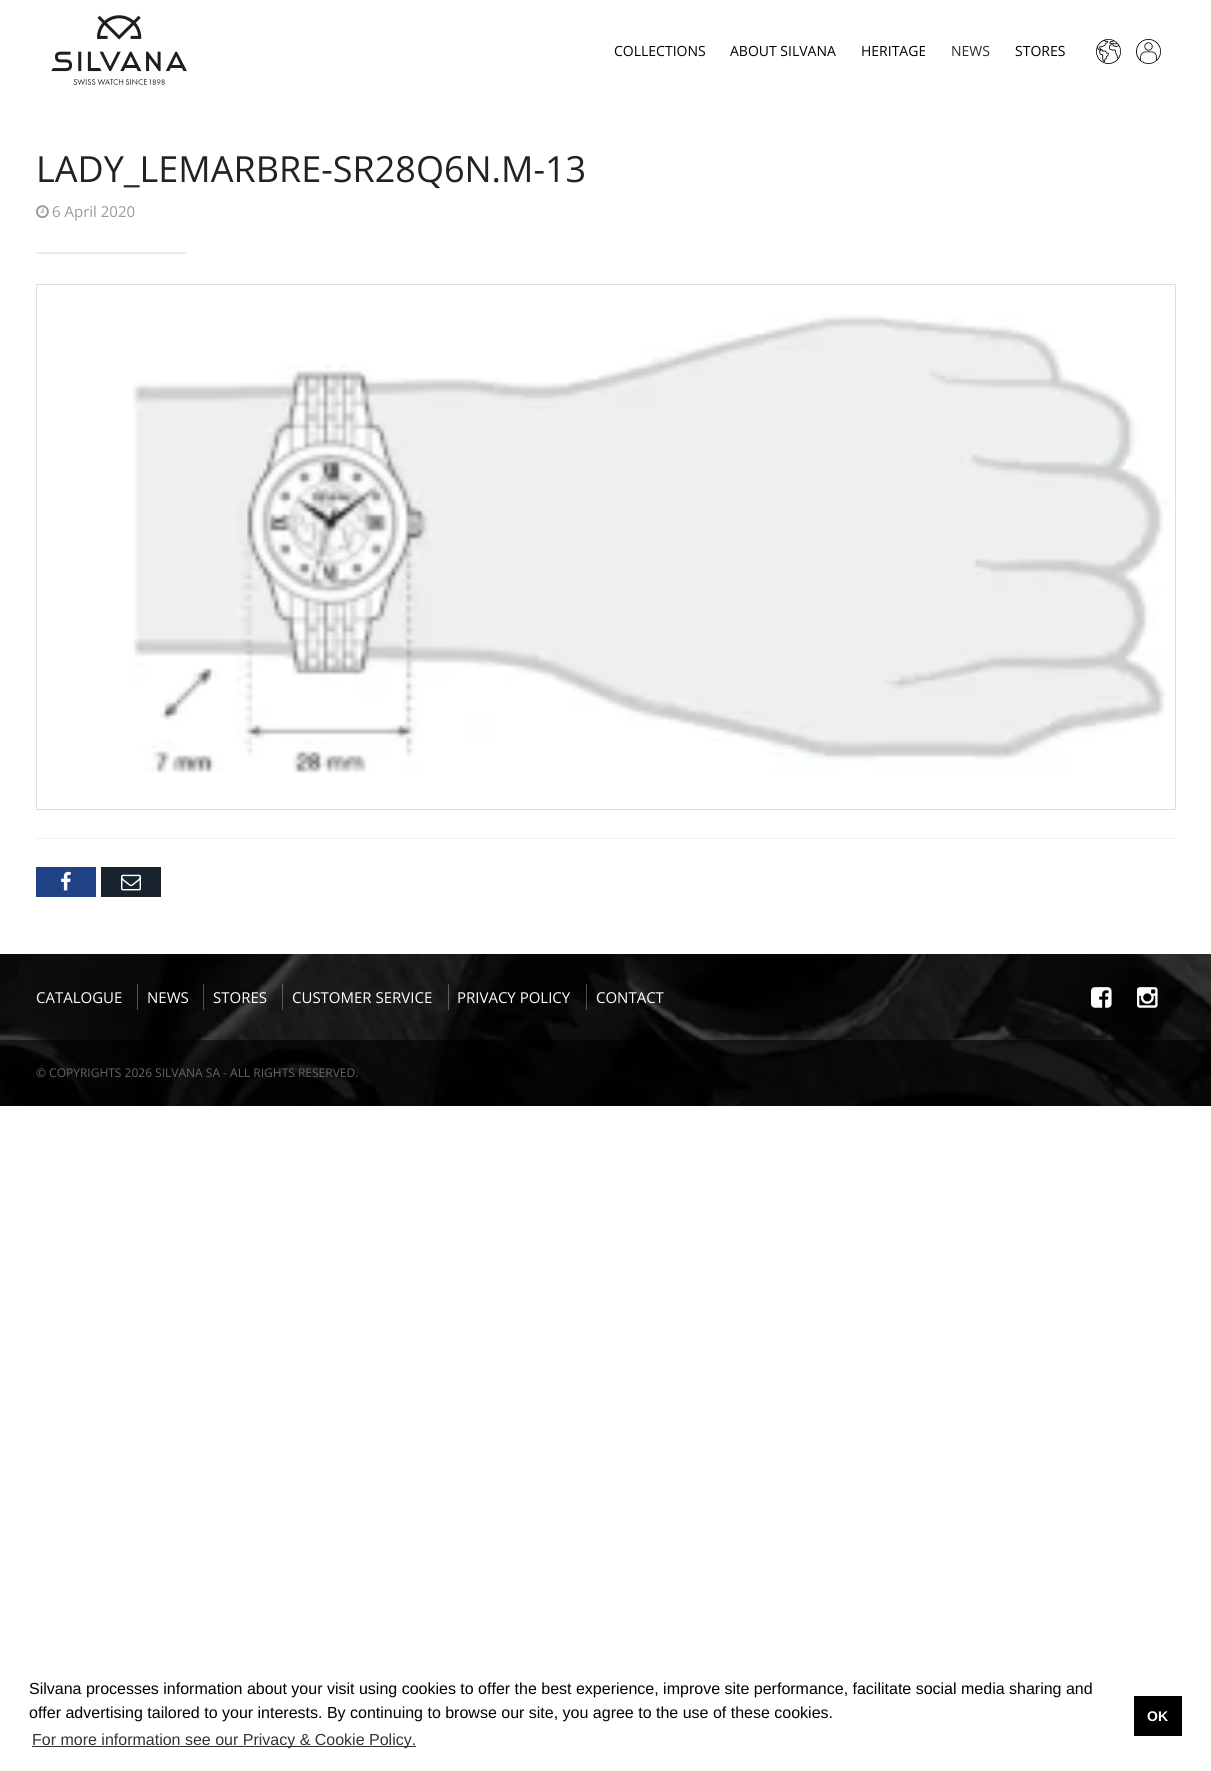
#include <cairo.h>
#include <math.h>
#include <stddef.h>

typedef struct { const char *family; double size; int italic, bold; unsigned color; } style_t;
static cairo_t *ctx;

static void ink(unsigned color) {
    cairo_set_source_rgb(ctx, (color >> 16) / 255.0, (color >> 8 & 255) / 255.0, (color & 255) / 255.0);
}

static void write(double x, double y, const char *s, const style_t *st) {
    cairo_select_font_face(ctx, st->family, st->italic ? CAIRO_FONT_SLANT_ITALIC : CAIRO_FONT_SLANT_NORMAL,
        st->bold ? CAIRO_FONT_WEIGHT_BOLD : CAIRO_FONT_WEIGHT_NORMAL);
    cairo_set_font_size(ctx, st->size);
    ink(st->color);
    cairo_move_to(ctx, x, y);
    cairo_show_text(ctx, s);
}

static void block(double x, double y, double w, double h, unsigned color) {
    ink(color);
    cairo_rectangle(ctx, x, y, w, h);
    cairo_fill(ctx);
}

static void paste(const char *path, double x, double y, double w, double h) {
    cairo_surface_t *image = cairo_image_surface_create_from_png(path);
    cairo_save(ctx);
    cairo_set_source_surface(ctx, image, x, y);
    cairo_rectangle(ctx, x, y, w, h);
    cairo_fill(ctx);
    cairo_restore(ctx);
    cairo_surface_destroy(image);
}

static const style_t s1 = {"Open Sans", 14, 0, 0, 0x000000};
static const style_t s2 = {"Open Sans", 14, 0, 0, 0x2b2b2b};
static const style_t s3 = {"Open Sans", 36, 0, 0, 0x222222};
static const style_t s4 = {"Open Sans", 15, 0, 0, 0x999999};
static const style_t s5 = {"Open Sans", 15, 0, 0, 0xffffff};
static const style_t s6 = {"Open Sans", 12, 0, 0, 0x666666};
static const style_t s7 = {"Liberation Sans", 16, 0, 0, 0x000000};
static const style_t s8 = {"Liberation Sans", 16, 0, 0, 0x333333};
static const style_t s9 = {"Liberation Sans", 14, 0, 1, 0xffffff};

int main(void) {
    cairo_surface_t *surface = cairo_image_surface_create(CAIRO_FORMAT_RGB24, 1211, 1771);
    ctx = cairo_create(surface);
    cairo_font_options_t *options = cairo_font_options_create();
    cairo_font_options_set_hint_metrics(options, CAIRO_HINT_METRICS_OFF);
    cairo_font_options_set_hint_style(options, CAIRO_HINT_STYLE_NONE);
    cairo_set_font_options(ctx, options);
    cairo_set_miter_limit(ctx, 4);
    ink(0xffffff);
    cairo_paint(ctx);
    paste("pic1.png", 51, 15, 136, 70);
    write(614, 56, "COLLECTIONS", &s1);
    write(730, 56, "ABOUT SILVANA", &s1);
    write(861, 56, "HERITAGE", &s1);
    write(951, 56, "NEWS", &s2);
    write(1015, 56, "STORES", &s1);
    paste("pic2.png", 1096, 39, 25, 25);
    paste("pic3.png", 1136, 39, 25, 25);
    write(36, 182, "LADY_LEMARBRE-SR28Q6N.M-13", &s3);
    paste("pic4.png", 36, 205, 13, 13);
    write(52, 217, "6 April 2020", &s4);
    block(36, 252, 150, 2, 0xebebeb);
    cairo_rectangle(ctx, 36.5, 284.5, 1139, 525);
    ink(0xdddddd);
    cairo_set_line_width(ctx, 1);
    cairo_stroke(ctx);
    paste("pic5.png", 131, 314, 1038, 459);
    block(36, 838, 1140, 1, 0xf1f1f1);
    block(36, 867, 60, 30, 0x204385);
    paste("pic6.png", 61, 871, 10, 20);
    block(101, 867, 60, 30, 0x19232d);
    paste("pic7.png", 121, 874, 20, 17);
    paste("pic8.png", 0, 954, 1211, 152);
    block(137, 984, 1, 26, 0x535353);
    write(36, 1003, "CATALOGUE", &s5);
    cairo_set_source_rgba(ctx, 1, 1, 1, 0.3);
    cairo_rectangle(ctx, 203, 984, 1, 26);
    cairo_fill(ctx);
    write(147, 1003, "NEWS", &s5);
    cairo_set_source_rgba(ctx, 1, 1, 1, 0.3);
    cairo_rectangle(ctx, 282, 984, 1, 26);
    cairo_fill(ctx);
    write(213, 1003, "STORES", &s5);
    cairo_set_source_rgba(ctx, 1, 1, 1, 0.3);
    cairo_rectangle(ctx, 448, 984, 1, 26);
    cairo_fill(ctx);
    write(292, 1003, "CUSTOMER SERVICE", &s5);
    cairo_set_source_rgba(ctx, 1, 1, 1, 0.3);
    cairo_rectangle(ctx, 586, 984, 1, 26);
    cairo_fill(ctx);
    write(457, 1003, "PRIVACY POLICY", &s5);
    write(596, 1003, "CONTACT", &s5);
    paste("pic9.png", 1091, 987, 21, 21);
    paste("pic10.png", 1137, 987, 21, 21);
    cairo_set_source_rgba(ctx, 0, 0, 0, 0.6);
    cairo_rectangle(ctx, 0, 1040, 1211, 66);
    cairo_fill(ctx);
    write(36, 1077, "© COPYRIGHTS 2026 SILVANA SA - ALL RIGHTS RESERVED.", &s6);
    write(29, 1694, "Silvana processes information about your visit using cookies to offer the best experience, improve site performance, facilitate social media sharing and", &s7);
    write(29, 1718, "offer advertising tailored to your interests. By continuing to browse our site, you agree to the use of these cookies.", &s7);
    block(32, 1746, 384, 1, 0x333333);
    write(32, 1745, "For more information see our Privacy & Cookie Policy.", &s8);
    block(1134, 1696, 48, 40, 0x000000);
    write(1147, 1721, "OK", &s9);
    cairo_surface_write_to_png(surface, "screenshot.png");
    cairo_font_options_destroy(options);
    cairo_destroy(ctx);
    cairo_surface_destroy(surface);
    return 0;
}
